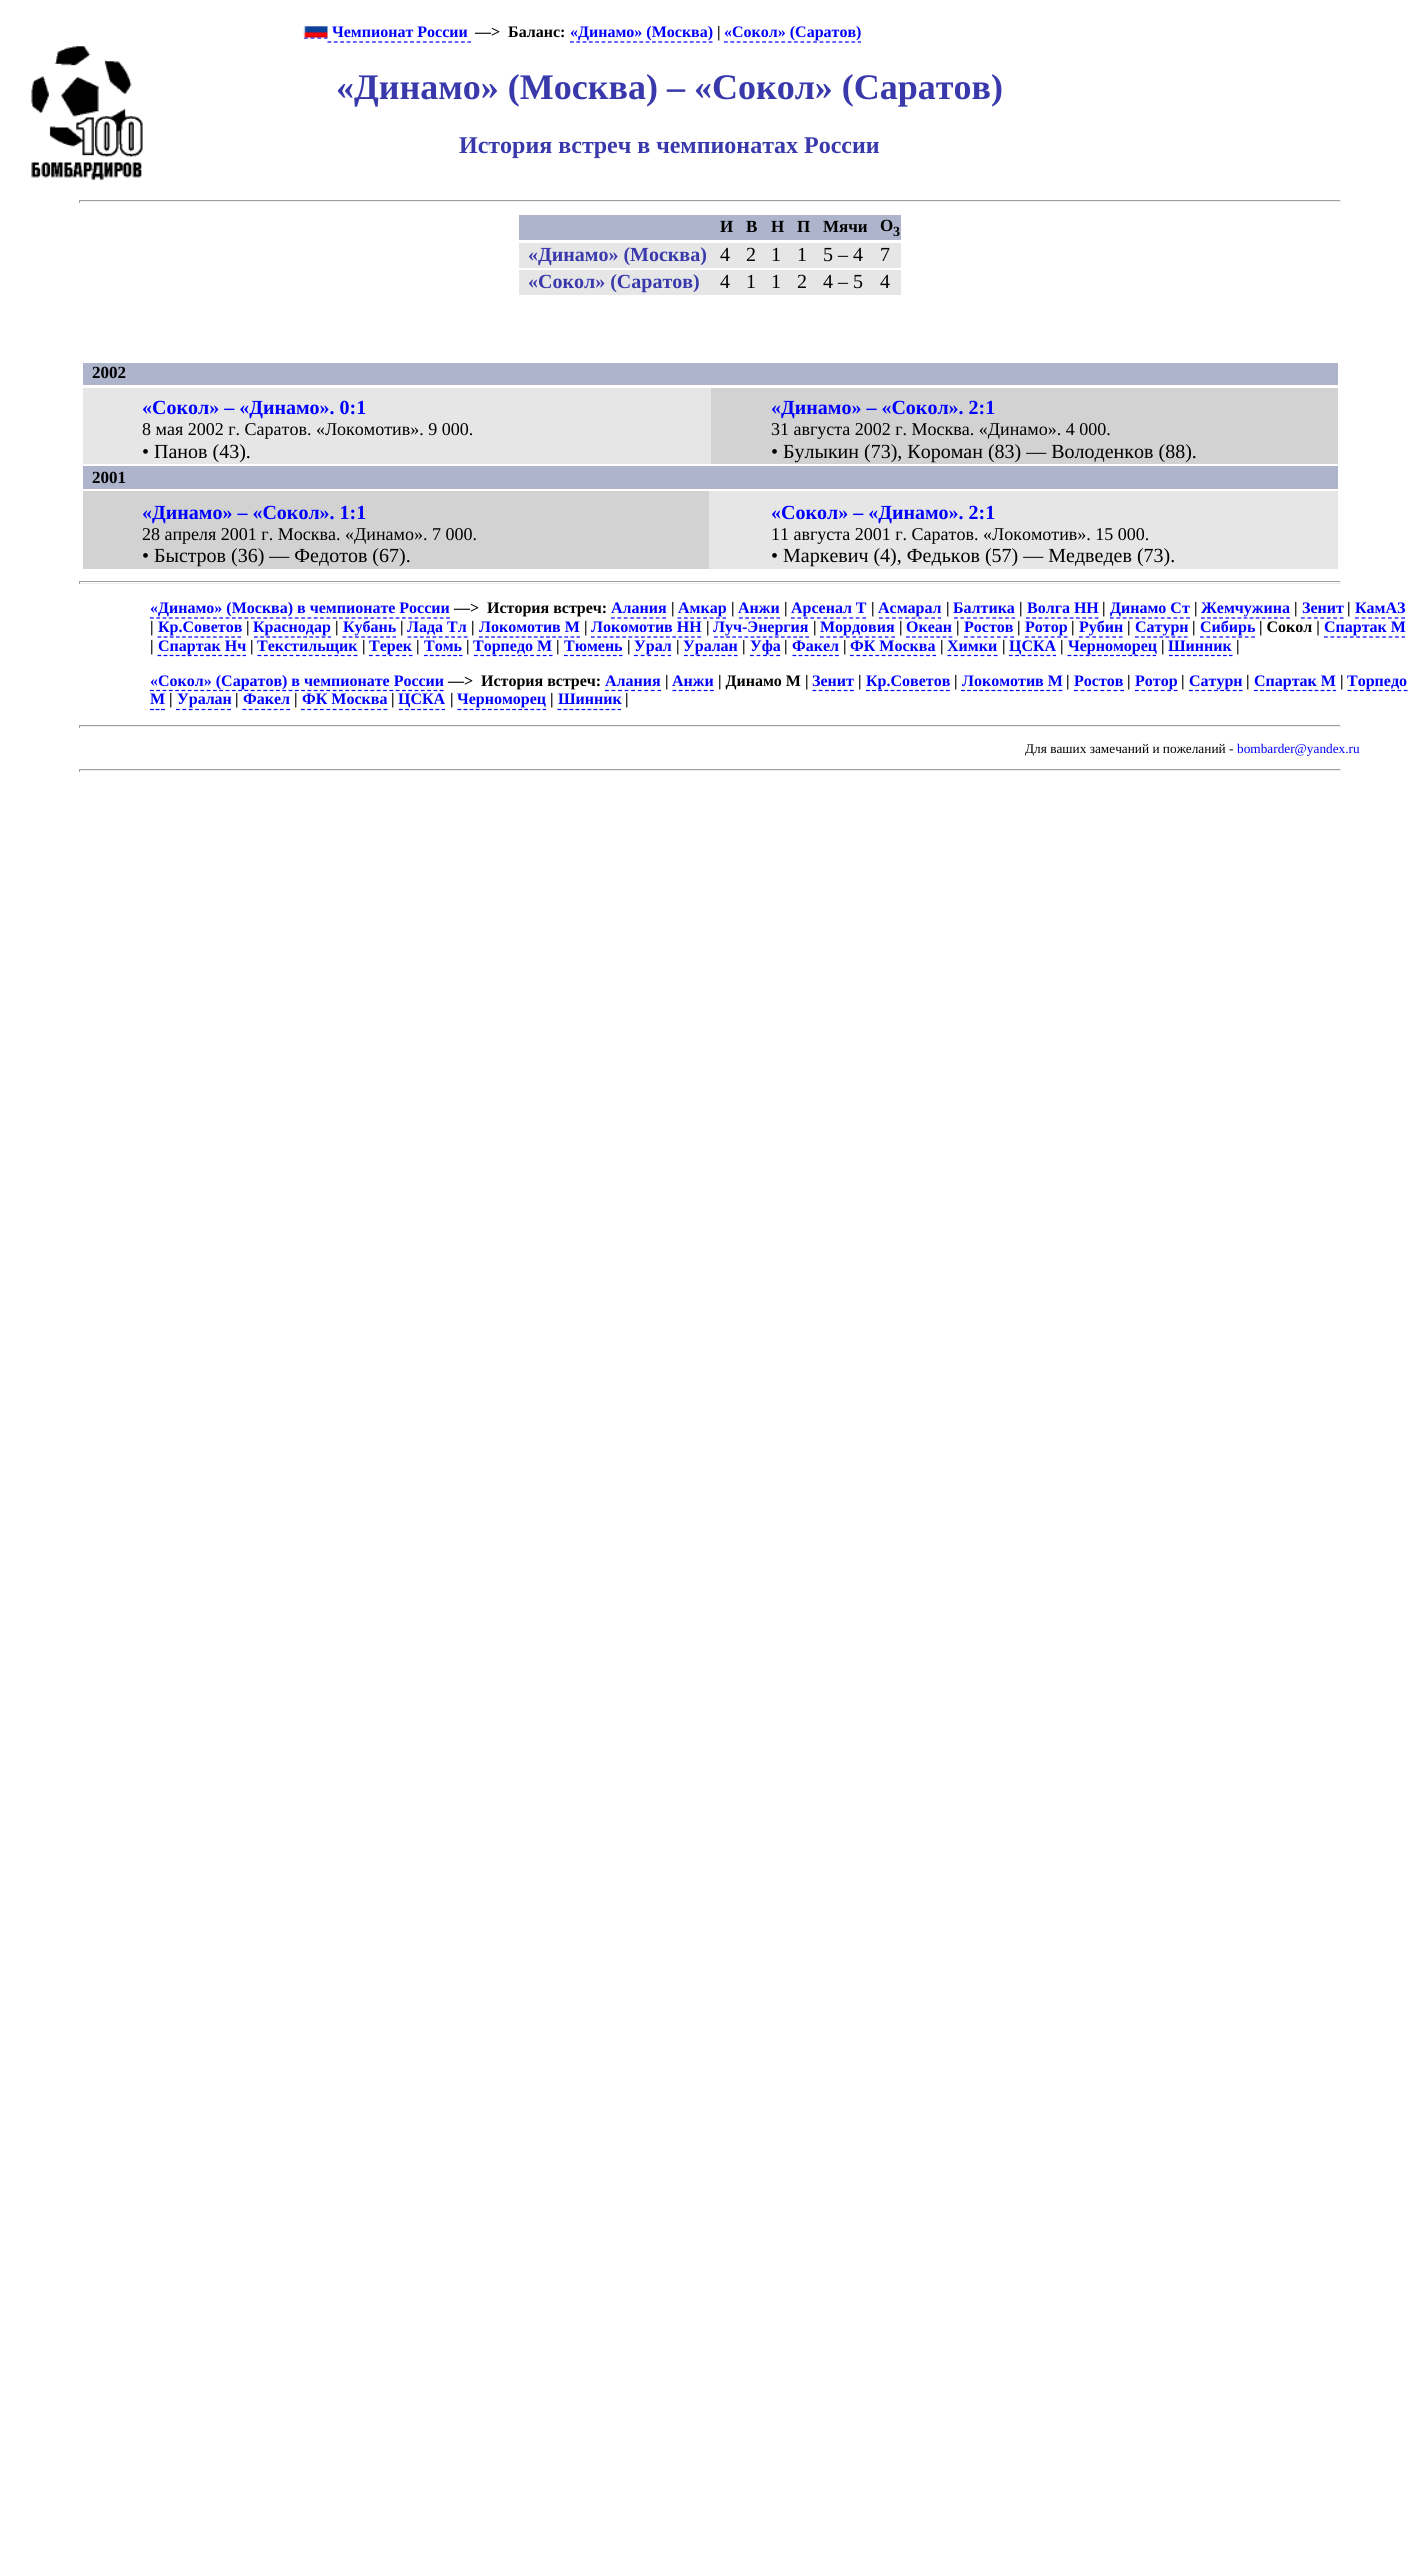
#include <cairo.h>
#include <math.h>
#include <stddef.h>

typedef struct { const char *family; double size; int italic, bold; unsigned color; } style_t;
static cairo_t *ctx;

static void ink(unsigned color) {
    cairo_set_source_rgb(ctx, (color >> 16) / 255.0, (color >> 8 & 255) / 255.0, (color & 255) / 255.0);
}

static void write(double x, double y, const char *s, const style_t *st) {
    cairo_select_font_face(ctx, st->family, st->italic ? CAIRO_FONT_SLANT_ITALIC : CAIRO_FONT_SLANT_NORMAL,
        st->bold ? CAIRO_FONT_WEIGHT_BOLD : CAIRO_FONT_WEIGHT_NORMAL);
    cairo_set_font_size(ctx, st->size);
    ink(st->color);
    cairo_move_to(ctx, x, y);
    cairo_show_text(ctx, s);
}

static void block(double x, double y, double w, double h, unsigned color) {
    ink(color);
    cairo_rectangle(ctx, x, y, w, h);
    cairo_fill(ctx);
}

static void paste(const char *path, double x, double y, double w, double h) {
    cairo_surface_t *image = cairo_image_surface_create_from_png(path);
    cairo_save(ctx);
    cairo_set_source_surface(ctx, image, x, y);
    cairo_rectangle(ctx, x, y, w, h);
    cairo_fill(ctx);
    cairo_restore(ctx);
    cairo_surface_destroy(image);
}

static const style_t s1 = {"Liberation Serif", 16, 0, 1, 0x0000ff};
static const style_t s2 = {"Liberation Serif", 16, 0, 1, 0x000000};
static const style_t s3 = {"Liberation Serif", 36, 0, 1, 0x3939ac};
static const style_t s4 = {"Liberation Serif", 24, 0, 1, 0x3939ac};
static const style_t s5 = {"Liberation Serif", 17, 0, 1, 0x000000};
static const style_t s6 = {"Liberation Serif", 14, 0, 1, 0x000000};
static const style_t s7 = {"Liberation Serif", 20, 0, 1, 0x3939ac};
static const style_t s8 = {"Liberation Serif", 20, 0, 0, 0x000000};
static const style_t s9 = {"Liberation Serif", 20, 0, 1, 0x0000ff};
static const style_t s10 = {"Liberation Serif", 18, 0, 0, 0x000000};
static const style_t s11 = {"Liberation Serif", 13.3, 0, 0, 0x000000};
static const style_t s12 = {"Liberation Serif", 13.3, 0, 0, 0x0000ff};

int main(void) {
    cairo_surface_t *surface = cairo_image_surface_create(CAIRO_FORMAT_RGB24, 1419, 2567);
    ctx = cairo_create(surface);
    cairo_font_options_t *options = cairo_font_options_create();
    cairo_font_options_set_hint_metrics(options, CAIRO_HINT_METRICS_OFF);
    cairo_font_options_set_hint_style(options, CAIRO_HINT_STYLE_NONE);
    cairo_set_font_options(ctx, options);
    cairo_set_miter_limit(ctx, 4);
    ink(0xffffff);
    cairo_paint(ctx);
    paste("pic1.png", 31, 46, 112, 135);
    cairo_new_path(ctx);
    cairo_move_to(ctx, 304, 38);
    cairo_line_to(ctx, 327.5, 38);
    ink(0x0000ff);
    cairo_set_line_width(ctx, 1.2);
    cairo_set_dash(ctx, (double[]){3.75, 2.91}, 2, 0);
    cairo_stroke(ctx);
    paste("pic2.png", 303, 26, 25, 12);
    write(332, 37, "Чемпионат России", &s1);
    cairo_new_path(ctx);
    cairo_move_to(ctx, 327.5, 42);
    cairo_line_to(ctx, 471, 42);
    cairo_set_dash(ctx, (double[]){3.75, 2.61}, 2, 0);
    cairo_stroke(ctx);
    write(475, 37, "—>  Баланс:", &s2);
    write(570, 37, "«Динамо» (Москва)", &s1);
    cairo_new_path(ctx);
    cairo_move_to(ctx, 570, 42);
    cairo_line_to(ctx, 712.5, 42);
    cairo_set_dash(ctx, (double[]){3.75, 2.56}, 2, 0);
    cairo_stroke(ctx);
    write(717, 37, "|", &s2);
    write(724, 37, "«Сокол» (Саратов)", &s1);
    cairo_new_path(ctx);
    cairo_move_to(ctx, 724, 42);
    cairo_line_to(ctx, 861, 42);
    cairo_set_dash(ctx, (double[]){3.75, 2.62}, 2, 0);
    cairo_stroke(ctx);
    write(336, 99, "«Динамо» (Москва) – «Сокол» (Саратов)", &s3);
    write(459, 153, "История встреч в чемпионатах России", &s4);
    block(79, 200, 1262, 1, 0x9f9f9f);
    block(1340, 200, 1, 3, 0xeeeeee);
    block(79, 201, 1262, 1, 0xeeeeee);
    block(79, 200, 1, 3, 0x9f9f9f);
    block(519, 215, 382, 25, 0xadb4cb);
    write(720, 232, "И", &s5);
    write(746, 232, "В", &s5);
    write(771, 232, "Н", &s5);
    write(797, 232, "П", &s5);
    write(823, 232, "Мячи", &s5);
    write(880, 231, "О", &s5);
    write(893, 236, "3", &s6);
    block(519, 243, 382, 25, 0xe6e6e6);
    write(528, 261, "«Динамо» (Москва)", &s7);
    write(720, 261, "4", &s8);
    write(746, 261, "2", &s8);
    write(771, 261, "1", &s8);
    write(797, 261, "1", &s8);
    write(823, 261, "5 – 4", &s8);
    write(880, 261, "7", &s8);
    block(519, 270, 382, 25, 0xe6e6e6);
    write(528, 288, "«Сокол» (Саратов)", &s7);
    write(720, 288, "4", &s8);
    write(746, 288, "1", &s8);
    write(771, 288, "1", &s8);
    write(797, 288, "2", &s8);
    write(823, 288, "4 – 5", &s8);
    write(880, 288, "4", &s8);
    block(83, 363, 1255, 22, 0xadb4cb);
    write(92, 378, "2002", &s5);
    block(83, 388, 628, 76, 0xe6e6e6);
    write(142, 414, "«Сокол» – «Динамо». 0:1", &s9);
    write(142, 435, "8 мая 2002 г. Саратов. «Локомотив». 9 000.", &s10);
    write(142, 458, "• Панов (43).", &s8);
    block(711, 388, 627, 76, 0xd2d2d2);
    write(771, 414, "«Динамо» – «Сокол». 2:1", &s9);
    write(771, 435, "31 августа 2002 г. Москва. «Динамо». 4 000.", &s10);
    write(771, 458, "• Булыкин (73), Короман (83) — Володенков (88).", &s8);
    block(83, 466, 1255, 23, 0xadb4cb);
    write(92, 483, "2001", &s5);
    block(709, 491, 629, 78, 0xe6e6e6);
    block(83, 491, 626, 78, 0xd2d2d2);
    write(142, 519, "«Динамо» – «Сокол». 1:1", &s9);
    write(142, 540, "28 апреля 2001 г. Москва. «Динамо». 7 000.", &s10);
    write(142, 562, "• Быстров (36) — Федотов (67).", &s8);
    write(771, 519, "«Сокол» – «Динамо». 2:1", &s9);
    write(771, 540, "11 августа 2001 г. Саратов. «Локомотив». 15 000.", &s10);
    write(771, 562, "• Маркевич (4), Федьков (57) — Медведев (73).", &s8);
    block(79, 581, 1262, 1, 0x9f9f9f);
    block(1340, 581, 1, 3, 0xeeeeee);
    block(79, 583, 1262, 1, 0xeeeeee);
    block(79, 581, 1, 3, 0x9f9f9f);
    write(150, 613, "«Динамо» (Москва) в чемпионате России", &s1);
    cairo_new_path(ctx);
    cairo_move_to(ctx, 150, 618);
    cairo_line_to(ctx, 450, 618);
    cairo_set_dash(ctx, (double[]){3.75, 2.55}, 2, 0);
    cairo_stroke(ctx);
    write(454, 613, "—>", &s2);
    write(487, 613, "История встреч:", &s2);
    write(611, 613, "Алания", &s1);
    cairo_new_path(ctx);
    cairo_move_to(ctx, 611, 618);
    cairo_line_to(ctx, 666, 618);
    cairo_set_dash(ctx, (double[]){3.75, 2.65}, 2, 0);
    cairo_stroke(ctx);
    write(671, 613, "|", &s2);
    write(678, 613, "Амкар", &s1);
    cairo_new_path(ctx);
    cairo_move_to(ctx, 677.5, 618);
    cairo_line_to(ctx, 726, 618);
    cairo_set_dash(ctx, (double[]){3.75, 2.68}, 2, 0);
    cairo_stroke(ctx);
    write(731, 613, "|", &s2);
    write(738, 613, "Анжи", &s1);
    cairo_new_path(ctx);
    cairo_move_to(ctx, 739, 618);
    cairo_line_to(ctx, 780, 618);
    cairo_set_dash(ctx, (double[]){3.75, 2.5}, 2, 0);
    cairo_stroke(ctx);
    write(784, 613, "|", &s2);
    write(791, 613, "Арсенал Т", &s1);
    cairo_new_path(ctx);
    cairo_move_to(ctx, 791, 618);
    cairo_line_to(ctx, 866, 618);
    cairo_set_dash(ctx, (double[]){3.75, 2.73}, 2, 0);
    cairo_stroke(ctx);
    write(871, 613, "|", &s2);
    write(878, 613, "Асмарал", &s1);
    cairo_new_path(ctx);
    cairo_move_to(ctx, 879, 618);
    cairo_line_to(ctx, 941, 618);
    cairo_set_dash(ctx, (double[]){3.75, 2.78}, 2, 0);
    cairo_stroke(ctx);
    write(946, 613, "|", &s2);
    write(953, 613, "Балтика", &s1);
    cairo_new_path(ctx);
    cairo_move_to(ctx, 954, 618);
    cairo_line_to(ctx, 1015, 618);
    cairo_set_dash(ctx, (double[]){3.75, 2.64}, 2, 0);
    cairo_stroke(ctx);
    write(1019, 613, "|", &s2);
    write(1027, 613, "Волга НН", &s1);
    cairo_new_path(ctx);
    cairo_move_to(ctx, 1026, 618);
    cairo_line_to(ctx, 1099, 618);
    cairo_set_dash(ctx, (double[]){3.75, 2.5}, 2, 0);
    cairo_stroke(ctx);
    write(1102, 613, "|", &s2);
    write(1110, 613, "Динамо Ст", &s1);
    cairo_new_path(ctx);
    cairo_move_to(ctx, 1110, 618);
    cairo_line_to(ctx, 1190, 618);
    cairo_set_dash(ctx, (double[]){3.75, 2.6}, 2, 0);
    cairo_stroke(ctx);
    write(1194, 613, "|", &s2);
    write(1201, 613, "Жемчужина", &s1);
    cairo_new_path(ctx);
    cairo_move_to(ctx, 1201, 618);
    cairo_line_to(ctx, 1290, 618);
    cairo_set_dash(ctx, (double[]){3.75, 2.33}, 2, 0);
    cairo_stroke(ctx);
    write(1294, 613, "|", &s2);
    write(1302, 613, "Зенит", &s1);
    cairo_new_path(ctx);
    cairo_move_to(ctx, 1301, 618);
    cairo_line_to(ctx, 1344, 618);
    cairo_set_dash(ctx, (double[]){3.75, 2.71}, 2, 0);
    cairo_stroke(ctx);
    write(1347, 613, "|", &s2);
    write(1355, 613, "КамАЗ", &s1);
    cairo_new_path(ctx);
    cairo_move_to(ctx, 1355, 618);
    cairo_line_to(ctx, 1405, 618);
    cairo_set_dash(ctx, (double[]){3.75, 2.86}, 2, 0);
    cairo_stroke(ctx);
    write(150, 632, "|", &s2);
    write(158, 632, "Кр.Советов", &s1);
    cairo_new_path(ctx);
    cairo_move_to(ctx, 157.5, 637);
    cairo_line_to(ctx, 241, 637);
    cairo_set_dash(ctx, (double[]){3.75, 2.4}, 2, 0);
    cairo_stroke(ctx);
    write(246, 632, "|", &s2);
    write(253, 632, "Краснодар", &s1);
    cairo_new_path(ctx);
    cairo_move_to(ctx, 254, 637);
    cairo_line_to(ctx, 331, 637);
    cairo_stroke(ctx);
    write(335, 632, "|", &s2);
    write(343, 632, "Кубань", &s1);
    cairo_new_path(ctx);
    cairo_move_to(ctx, 342.5, 637);
    cairo_line_to(ctx, 396, 637);
    cairo_set_dash(ctx, (double[]){3.75, 2.5}, 2, 0);
    cairo_stroke(ctx);
    write(400, 632, "|", &s2);
    write(407, 632, "Лада Тл", &s1);
    cairo_new_path(ctx);
    cairo_move_to(ctx, 407.5, 637);
    cairo_line_to(ctx, 467.5, 637);
    cairo_stroke(ctx);
    write(471, 632, "|", &s2);
    write(479, 632, "Локомотив М", &s1);
    cairo_new_path(ctx);
    cairo_move_to(ctx, 479, 637);
    cairo_line_to(ctx, 580, 637);
    cairo_set_dash(ctx, (double[]){3.75, 2.35}, 2, 0);
    cairo_stroke(ctx);
    write(584, 632, "|", &s2);
    write(591, 632, "Локомотив НН", &s1);
    cairo_new_path(ctx);
    cairo_move_to(ctx, 591, 637);
    cairo_line_to(ctx, 701, 637);
    cairo_set_dash(ctx, (double[]){3.75, 2.5}, 2, 0);
    cairo_stroke(ctx);
    write(706, 632, "|", &s2);
    write(713, 632, "Луч-Энергия", &s1);
    cairo_new_path(ctx);
    cairo_move_to(ctx, 714, 637);
    cairo_line_to(ctx, 809, 637);
    cairo_set_dash(ctx, (double[]){3.75, 2.34}, 2, 0);
    cairo_stroke(ctx);
    write(813, 632, "|", &s2);
    write(820, 632, "Мордовия", &s1);
    cairo_new_path(ctx);
    cairo_move_to(ctx, 820, 637);
    cairo_line_to(ctx, 895, 637);
    cairo_set_dash(ctx, (double[]){3.75, 2.73}, 2, 0);
    cairo_stroke(ctx);
    write(899, 632, "|", &s2);
    write(906, 632, "Океан", &s1);
    cairo_new_path(ctx);
    cairo_move_to(ctx, 906, 637);
    cairo_line_to(ctx, 952.5, 637);
    cairo_set_dash(ctx, (double[]){3.75, 2.33}, 2, 0);
    cairo_stroke(ctx);
    write(956, 632, "|", &s2);
    write(964, 632, "Ростов", &s1);
    cairo_new_path(ctx);
    cairo_move_to(ctx, 964, 637);
    cairo_line_to(ctx, 1014, 637);
    cairo_set_dash(ctx, (double[]){3.75, 2.86}, 2, 0);
    cairo_stroke(ctx);
    write(1017, 632, "|", &s2);
    write(1025, 632, "Ротор", &s1);
    cairo_new_path(ctx);
    cairo_move_to(ctx, 1025, 637);
    cairo_line_to(ctx, 1067.5, 637);
    cairo_set_dash(ctx, (double[]){3.75, 2.71}, 2, 0);
    cairo_stroke(ctx);
    write(1071, 632, "|", &s2);
    write(1079, 632, "Рубин", &s1);
    cairo_new_path(ctx);
    cairo_move_to(ctx, 1079, 637);
    cairo_line_to(ctx, 1122.5, 637);
    cairo_set_dash(ctx, (double[]){3.75, 2.91}, 2, 0);
    cairo_stroke(ctx);
    write(1127, 632, "|", &s2);
    write(1135, 632, "Сатурн", &s1);
    cairo_new_path(ctx);
    cairo_move_to(ctx, 1135, 637);
    cairo_line_to(ctx, 1187.5, 637);
    cairo_set_dash(ctx, (double[]){3.75, 2.35}, 2, 0);
    cairo_stroke(ctx);
    write(1192, 632, "|", &s2);
    write(1200, 632, "Сибирь", &s1);
    cairo_new_path(ctx);
    cairo_move_to(ctx, 1200, 637);
    cairo_line_to(ctx, 1255, 637);
    cairo_set_dash(ctx, (double[]){3.75, 2.65}, 2, 0);
    cairo_stroke(ctx);
    write(1259, 632, "| Сокол |", &s2);
    write(1324, 632, "Спартак М", &s1);
    cairo_new_path(ctx);
    cairo_move_to(ctx, 1324, 637);
    cairo_line_to(ctx, 1405, 637);
    cairo_set_dash(ctx, (double[]){3.75, 2.71}, 2, 0);
    cairo_stroke(ctx);
    write(150, 651, "|", &s2);
    cairo_new_path(ctx);
    cairo_move_to(ctx, 157.5, 655.5);
    cairo_line_to(ctx, 246, 655.5);
    ink(0x0000ff);
    cairo_set_dash(ctx, (double[]){3.75, 2.33}, 2, 0);
    cairo_stroke(ctx);
    write(158, 651, "Спартак Нч", &s1);
    write(250, 651, "|", &s2);
    write(257, 651, "Текстильщик", &s1);
    cairo_new_path(ctx);
    cairo_move_to(ctx, 257.5, 655.5);
    cairo_line_to(ctx, 357.5, 655.5);
    cairo_set_dash(ctx, (double[]){3.75, 2.66}, 2, 0);
    cairo_stroke(ctx);
    write(362, 651, "|", &s2);
    cairo_new_path(ctx);
    cairo_move_to(ctx, 369, 655.5);
    cairo_line_to(ctx, 412.5, 655.5);
    ink(0x0000ff);
    cairo_set_dash(ctx, (double[]){3.75, 2.91}, 2, 0);
    cairo_stroke(ctx);
    write(369, 651, "Терек", &s1);
    write(416, 651, "|", &s2);
    write(424, 651, "Томь", &s1);
    cairo_new_path(ctx);
    cairo_move_to(ctx, 424, 655.5);
    cairo_line_to(ctx, 462.5, 655.5);
    cairo_set_dash(ctx, (double[]){3.75, 2.09}, 2, 0);
    cairo_stroke(ctx);
    write(466, 651, "|", &s2);
    cairo_new_path(ctx);
    cairo_move_to(ctx, 474, 655.5);
    cairo_line_to(ctx, 552.5, 655.5);
    ink(0x0000ff);
    cairo_set_dash(ctx, (double[]){3.75, 2.5}, 2, 0);
    cairo_stroke(ctx);
    write(473, 651, "Торпедо М", &s1);
    write(556, 651, "|", &s2);
    write(564, 651, "Тюмень", &s1);
    cairo_new_path(ctx);
    cairo_move_to(ctx, 564, 655.5);
    cairo_line_to(ctx, 622.5, 655.5);
    cairo_set_dash(ctx, (double[]){3.75, 2.36}, 2, 0);
    cairo_stroke(ctx);
    write(627, 651, "|", &s2);
    cairo_new_path(ctx);
    cairo_move_to(ctx, 634, 655.5);
    cairo_line_to(ctx, 671, 655.5);
    ink(0x0000ff);
    cairo_set_dash(ctx, (double[]){3.75, 3}, 2, 0);
    cairo_stroke(ctx);
    write(634, 651, "Урал", &s1);
    write(676, 651, "|", &s2);
    cairo_new_path(ctx);
    cairo_move_to(ctx, 684, 655.5);
    cairo_line_to(ctx, 737.5, 655.5);
    ink(0x0000ff);
    cairo_set_dash(ctx, (double[]){3.75, 2.5}, 2, 0);
    cairo_stroke(ctx);
    write(683, 651, "Уралан", &s1);
    write(742, 651, "|", &s2);
    cairo_new_path(ctx);
    cairo_move_to(ctx, 750, 655.5);
    cairo_line_to(ctx, 780, 655.5);
    ink(0x0000ff);
    cairo_set_dash(ctx, (double[]){3.75, 2.81}, 2, 0);
    cairo_stroke(ctx);
    write(750, 651, "Уфа", &s1);
    write(784, 651, "|", &s2);
    write(792, 651, "Факел", &s1);
    cairo_new_path(ctx);
    cairo_move_to(ctx, 792.5, 655.5);
    cairo_line_to(ctx, 839, 655.5);
    cairo_set_dash(ctx, (double[]){3.75, 2.33}, 2, 0);
    cairo_stroke(ctx);
    write(843, 651, "|", &s2);
    write(850, 651, "ФК Москва", &s1);
    cairo_new_path(ctx);
    cairo_move_to(ctx, 850, 655.5);
    cairo_line_to(ctx, 936, 655.5);
    cairo_set_dash(ctx, (double[]){3.75, 2.6}, 2, 0);
    cairo_stroke(ctx);
    write(940, 651, "|", &s2);
    write(947, 651, "Химки", &s1);
    cairo_new_path(ctx);
    cairo_move_to(ctx, 947.5, 655.5);
    cairo_line_to(ctx, 997.5, 655.5);
    cairo_set_dash(ctx, (double[]){3.75, 2.86}, 2, 0);
    cairo_stroke(ctx);
    write(1002, 651, "|", &s2);
    cairo_new_path(ctx);
    cairo_move_to(ctx, 1009, 655.5);
    cairo_line_to(ctx, 1056, 655.5);
    ink(0x0000ff);
    cairo_set_dash(ctx, (double[]){3.75, 2.5}, 2, 0);
    cairo_stroke(ctx);
    write(1009, 651, "ЦСКА", &s1);
    write(1060, 651, "|", &s2);
    cairo_new_path(ctx);
    cairo_move_to(ctx, 1067.5, 655.5);
    cairo_line_to(ctx, 1156, 655.5);
    ink(0x0000ff);
    cairo_set_dash(ctx, (double[]){3.75, 2.33}, 2, 0);
    cairo_stroke(ctx);
    write(1068, 651, "Черноморец", &s1);
    write(1161, 651, "|", &s2);
    write(1168, 651, "Шинник", &s1);
    cairo_new_path(ctx);
    cairo_move_to(ctx, 1169, 655.5);
    cairo_line_to(ctx, 1232.5, 655.5);
    cairo_set_dash(ctx, (double[]){3.75, 2.25}, 2, 0);
    cairo_stroke(ctx);
    write(1236, 651, "|", &s2);
    cairo_new_path(ctx);
    cairo_move_to(ctx, 150, 690.5);
    cairo_line_to(ctx, 444, 690.5);
    ink(0x0000ff);
    cairo_set_dash(ctx, (double[]){3.75, 2.55}, 2, 0);
    cairo_stroke(ctx);
    write(150, 686, "«Сокол» (Саратов) в чемпионате России", &s1);
    write(448, 686, "—>", &s2);
    write(481, 686, "История встреч:", &s2);
    write(605, 686, "Алания", &s1);
    cairo_new_path(ctx);
    cairo_move_to(ctx, 605, 690.5);
    cairo_line_to(ctx, 661, 690.5);
    cairo_set_dash(ctx, (double[]){3.75, 2.81}, 2, 0);
    cairo_stroke(ctx);
    write(665, 686, "|", &s2);
    write(672, 686, "Анжи", &s1);
    cairo_new_path(ctx);
    cairo_move_to(ctx, 672.5, 690.5);
    cairo_line_to(ctx, 714, 690.5);
    cairo_set_dash(ctx, (double[]){3.75, 2.5}, 2, 0);
    cairo_stroke(ctx);
    write(718, 686, "| Динамо М |", &s2);
    write(812, 686, "Зенит", &s1);
    cairo_new_path(ctx);
    cairo_move_to(ctx, 812.5, 690.5);
    cairo_line_to(ctx, 854, 690.5);
    cairo_stroke(ctx);
    write(858, 686, "|", &s2);
    cairo_new_path(ctx);
    cairo_move_to(ctx, 866, 690.5);
    cairo_line_to(ctx, 950, 690.5);
    ink(0x0000ff);
    cairo_set_dash(ctx, (double[]){3.75, 2.4}, 2, 0);
    cairo_stroke(ctx);
    write(866, 686, "Кр.Советов", &s1);
    write(954, 686, "|", &s2);
    write(962, 686, "Локомотив М", &s1);
    cairo_new_path(ctx);
    cairo_move_to(ctx, 961, 690.5);
    cairo_line_to(ctx, 1062.5, 690.5);
    cairo_set_dash(ctx, (double[]){3.75, 2.35}, 2, 0);
    cairo_stroke(ctx);
    write(1066, 686, "|", &s2);
    write(1074, 686, "Ростов", &s1);
    cairo_new_path(ctx);
    cairo_move_to(ctx, 1074, 690.5);
    cairo_line_to(ctx, 1124, 690.5);
    cairo_set_dash(ctx, (double[]){3.75, 2.86}, 2, 0);
    cairo_stroke(ctx);
    write(1127, 686, "|", &s2);
    cairo_new_path(ctx);
    cairo_move_to(ctx, 1135, 690.5);
    cairo_line_to(ctx, 1177.5, 690.5);
    ink(0x0000ff);
    cairo_set_dash(ctx, (double[]){3.75, 2.71}, 2, 0);
    cairo_stroke(ctx);
    write(1135, 686, "Ротор", &s1);
    write(1181, 686, "|", &s2);
    cairo_new_path(ctx);
    cairo_move_to(ctx, 1189, 690.5);
    cairo_line_to(ctx, 1242.5, 690.5);
    ink(0x0000ff);
    cairo_set_dash(ctx, (double[]){3.75, 2.5}, 2, 0);
    cairo_stroke(ctx);
    write(1189, 686, "Сатурн", &s1);
    write(1246, 686, "|", &s2);
    cairo_new_path(ctx);
    cairo_move_to(ctx, 1254, 690.5);
    cairo_line_to(ctx, 1336, 690.5);
    ink(0x0000ff);
    cairo_set_dash(ctx, (double[]){3.75, 2.31}, 2, 0);
    cairo_stroke(ctx);
    write(1254, 686, "Спартак М", &s1);
    write(1340, 686, "|", &s2);
    cairo_new_path(ctx);
    cairo_move_to(ctx, 1347.5, 690.5);
    cairo_line_to(ctx, 1407.5, 690.5);
    ink(0x0000ff);
    cairo_set_dash(ctx, (double[]){3.75, 2.5}, 2, 0);
    cairo_stroke(ctx);
    write(1347, 686, "Торпедо", &s1);
    write(150, 704, "М", &s1);
    cairo_new_path(ctx);
    cairo_move_to(ctx, 150, 709.5);
    cairo_line_to(ctx, 154, 709.5);
    cairo_move_to(ctx, 155.5, 709.5);
    cairo_line_to(ctx, 159.5, 709.5);
    cairo_move_to(ctx, 161, 709.5);
    cairo_line_to(ctx, 165, 709.5);
    cairo_set_dash(ctx, NULL, 0, 0);
    cairo_stroke(ctx);
    write(169, 704, "|", &s2);
    write(177, 704, "Уралан", &s1);
    cairo_new_path(ctx);
    cairo_move_to(ctx, 176, 709.5);
    cairo_line_to(ctx, 231, 709.5);
    cairo_set_dash(ctx, (double[]){3.75, 2.65}, 2, 0);
    cairo_stroke(ctx);
    write(235, 704, "|", &s2);
    write(243, 704, "Факел", &s1);
    cairo_new_path(ctx);
    cairo_move_to(ctx, 242.5, 709.5);
    cairo_line_to(ctx, 290, 709.5);
    cairo_set_dash(ctx, (double[]){3.75, 2.5}, 2, 0);
    cairo_stroke(ctx);
    write(294, 704, "|", &s2);
    write(302, 704, "ФК Москва", &s1);
    cairo_new_path(ctx);
    cairo_move_to(ctx, 301, 709.5);
    cairo_line_to(ctx, 387.5, 709.5);
    cairo_set_dash(ctx, (double[]){3.75, 2.6}, 2, 0);
    cairo_stroke(ctx);
    write(391, 704, "|", &s2);
    write(398, 704, "ЦСКА", &s1);
    cairo_new_path(ctx);
    cairo_move_to(ctx, 399, 709.5);
    cairo_line_to(ctx, 445, 709.5);
    cairo_set_dash(ctx, (double[]){3.75, 2.33}, 2, 0);
    cairo_stroke(ctx);
    write(450, 704, "|", &s2);
    write(457, 704, "Черноморец", &s1);
    cairo_new_path(ctx);
    cairo_move_to(ctx, 457.5, 709.5);
    cairo_line_to(ctx, 546, 709.5);
    cairo_stroke(ctx);
    write(550, 704, "|", &s2);
    write(558, 704, "Шинник", &s1);
    cairo_new_path(ctx);
    cairo_move_to(ctx, 557.5, 709.5);
    cairo_line_to(ctx, 621, 709.5);
    cairo_set_dash(ctx, (double[]){3.75, 2.25}, 2, 0);
    cairo_stroke(ctx);
    write(625, 704, "|", &s2);
    block(79, 725, 1262, 1, 0x9f9f9f);
    block(1340, 725, 1, 3, 0xeeeeee);
    block(79, 726, 1262, 1, 0xeeeeee);
    block(79, 725, 1, 3, 0x9f9f9f);
    write(1025, 753, "Для ваших замечаний и пожеланий -", &s11);
    write(1237, 753, "bombarder@yandex.ru", &s12);
    block(79, 769, 1262, 1, 0x9f9f9f);
    block(1340, 769, 1, 3, 0xeeeeee);
    block(79, 770, 1262, 1, 0xeeeeee);
    block(79, 769, 1, 3, 0x9f9f9f);
    cairo_surface_write_to_png(surface, "screenshot.png");
    cairo_font_options_destroy(options);
    cairo_destroy(ctx);
    cairo_surface_destroy(surface);
    return 0;
}
